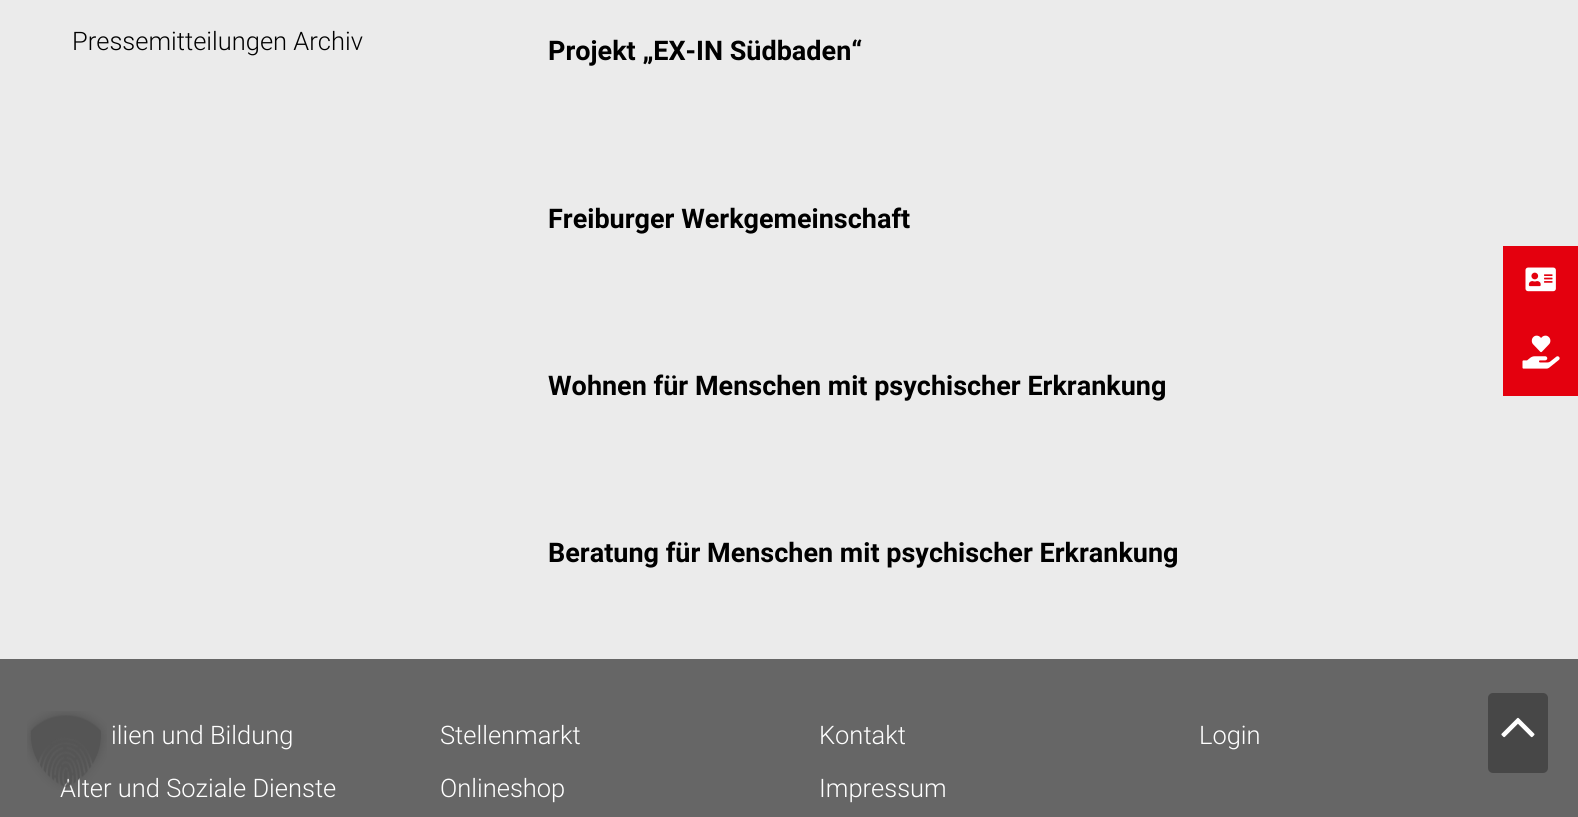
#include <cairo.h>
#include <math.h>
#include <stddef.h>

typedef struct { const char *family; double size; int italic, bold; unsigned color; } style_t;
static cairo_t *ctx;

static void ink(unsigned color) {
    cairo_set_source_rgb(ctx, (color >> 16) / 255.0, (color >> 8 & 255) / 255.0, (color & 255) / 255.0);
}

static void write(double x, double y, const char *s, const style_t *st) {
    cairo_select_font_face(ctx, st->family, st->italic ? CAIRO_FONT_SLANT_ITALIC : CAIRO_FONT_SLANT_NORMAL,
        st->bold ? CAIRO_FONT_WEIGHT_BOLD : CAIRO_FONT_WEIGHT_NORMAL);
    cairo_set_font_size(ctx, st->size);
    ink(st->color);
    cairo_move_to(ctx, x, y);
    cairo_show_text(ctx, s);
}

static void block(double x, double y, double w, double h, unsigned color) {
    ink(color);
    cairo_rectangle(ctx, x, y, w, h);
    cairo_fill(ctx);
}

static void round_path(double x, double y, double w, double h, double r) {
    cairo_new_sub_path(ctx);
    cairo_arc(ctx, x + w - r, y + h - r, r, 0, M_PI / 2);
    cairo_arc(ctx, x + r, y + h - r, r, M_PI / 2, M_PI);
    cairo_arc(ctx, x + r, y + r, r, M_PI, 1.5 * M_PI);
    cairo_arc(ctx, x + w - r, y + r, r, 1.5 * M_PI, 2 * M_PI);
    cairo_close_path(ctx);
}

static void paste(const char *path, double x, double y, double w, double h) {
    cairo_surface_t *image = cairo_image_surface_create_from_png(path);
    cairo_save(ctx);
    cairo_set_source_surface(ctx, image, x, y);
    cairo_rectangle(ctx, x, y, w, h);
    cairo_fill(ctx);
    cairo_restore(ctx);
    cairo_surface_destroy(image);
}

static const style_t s1 = {"Roboto Light", 25.5, 0, 0, 0x000000};
static const style_t s2 = {"Roboto", 27, 0, 1, 0x000000};
static const style_t s3 = {"Roboto Light", 25.5, 0, 0, 0xffffff};

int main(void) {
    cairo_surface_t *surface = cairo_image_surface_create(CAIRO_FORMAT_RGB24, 1578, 817);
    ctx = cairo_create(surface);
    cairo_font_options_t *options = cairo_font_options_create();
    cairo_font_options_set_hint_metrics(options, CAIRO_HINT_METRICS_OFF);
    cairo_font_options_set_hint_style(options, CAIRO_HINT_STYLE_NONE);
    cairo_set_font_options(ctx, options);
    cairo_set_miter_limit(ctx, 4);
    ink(0xebebeb);
    cairo_paint(ctx);
    write(72, 50, "Pressemitteilungen Archiv", &s1);
    write(548, 60, "Projekt „EX-IN Südbaden“", &s2);
    write(548, 228, "Freiburger Werkgemeinschaft", &s2);
    write(548, 395, "Wohnen für Menschen mit psychischer Erkrankung", &s2);
    write(548, 562, "Beratung für Menschen mit psychischer Erkrankung", &s2);
    block(1503, 246, 75, 150, 0xe4000e);
    paste("pic1.png", 1525, 267, 31, 25);
    paste("pic2.png", 1522, 335, 38, 34);
    block(0, 659, 1578, 158, 0x666666);
    write(60, 797, "Alter und Soziale Dienste", &s3);
    paste("pic3.png", 27, 711, 80, 79);
    ink(0x474747);
    round_path(1488, 693, 60, 80, 5);
    cairo_fill(ctx);
    paste("pic4.png", 1501, 717, 34, 21);
    write(111, 744, "ilien und Bildung", &s3);
    write(440, 744, "Stellenmarkt", &s3);
    write(440, 797, "Onlineshop", &s3);
    write(819, 744, "Kontakt", &s3);
    write(819, 797, "Impressum", &s3);
    write(1199, 744, "Login", &s3);
    cairo_surface_write_to_png(surface, "screenshot.png");
    cairo_font_options_destroy(options);
    cairo_destroy(ctx);
    cairo_surface_destroy(surface);
    return 0;
}
